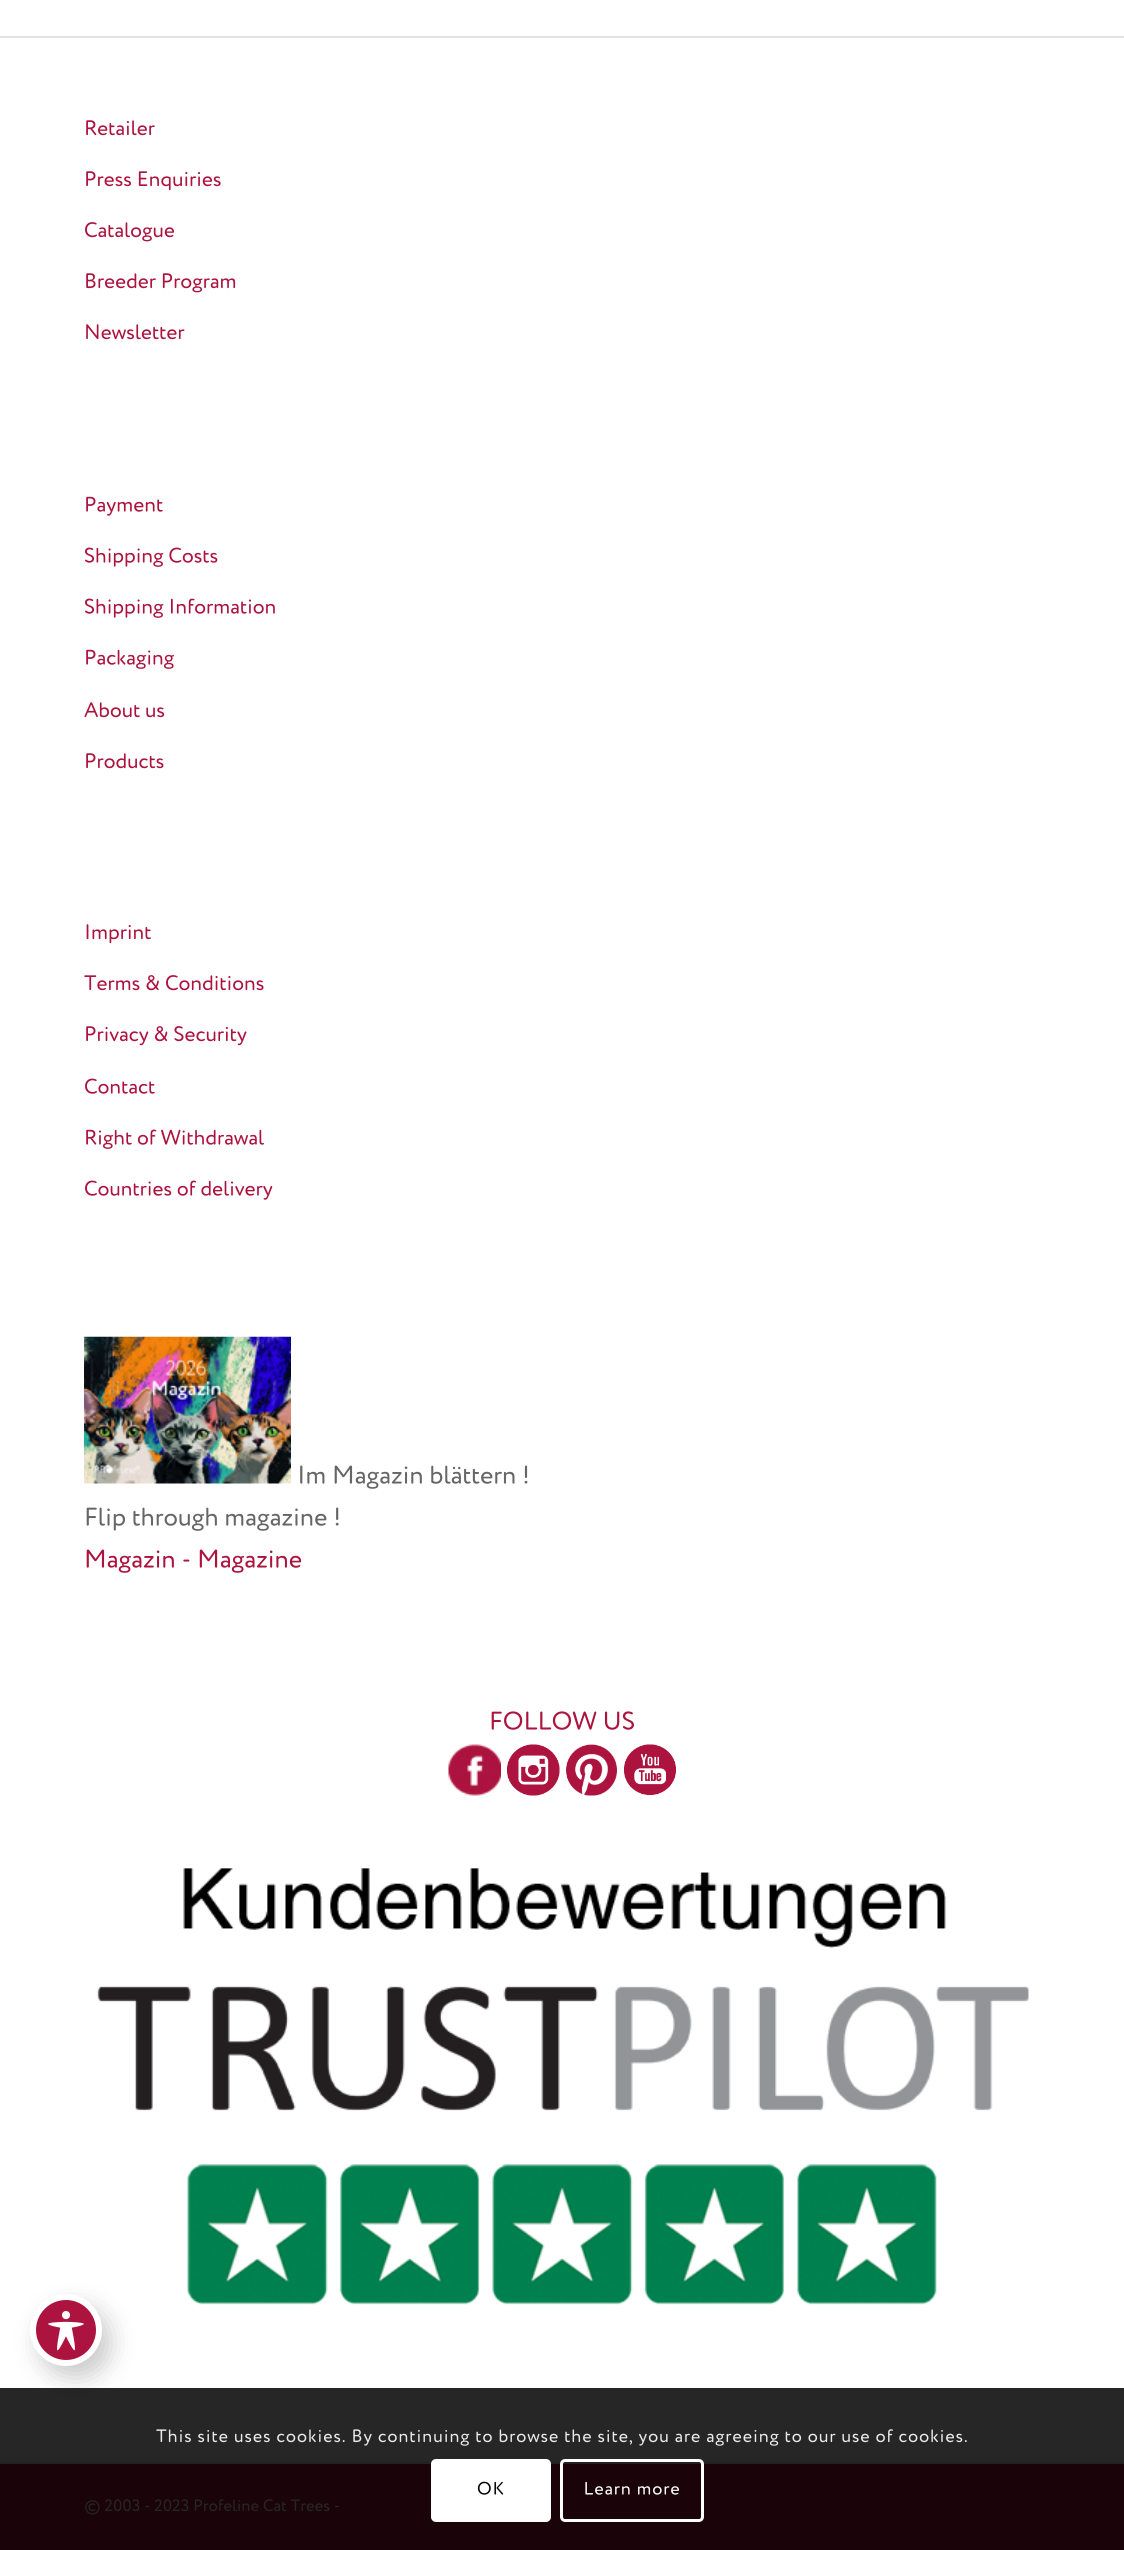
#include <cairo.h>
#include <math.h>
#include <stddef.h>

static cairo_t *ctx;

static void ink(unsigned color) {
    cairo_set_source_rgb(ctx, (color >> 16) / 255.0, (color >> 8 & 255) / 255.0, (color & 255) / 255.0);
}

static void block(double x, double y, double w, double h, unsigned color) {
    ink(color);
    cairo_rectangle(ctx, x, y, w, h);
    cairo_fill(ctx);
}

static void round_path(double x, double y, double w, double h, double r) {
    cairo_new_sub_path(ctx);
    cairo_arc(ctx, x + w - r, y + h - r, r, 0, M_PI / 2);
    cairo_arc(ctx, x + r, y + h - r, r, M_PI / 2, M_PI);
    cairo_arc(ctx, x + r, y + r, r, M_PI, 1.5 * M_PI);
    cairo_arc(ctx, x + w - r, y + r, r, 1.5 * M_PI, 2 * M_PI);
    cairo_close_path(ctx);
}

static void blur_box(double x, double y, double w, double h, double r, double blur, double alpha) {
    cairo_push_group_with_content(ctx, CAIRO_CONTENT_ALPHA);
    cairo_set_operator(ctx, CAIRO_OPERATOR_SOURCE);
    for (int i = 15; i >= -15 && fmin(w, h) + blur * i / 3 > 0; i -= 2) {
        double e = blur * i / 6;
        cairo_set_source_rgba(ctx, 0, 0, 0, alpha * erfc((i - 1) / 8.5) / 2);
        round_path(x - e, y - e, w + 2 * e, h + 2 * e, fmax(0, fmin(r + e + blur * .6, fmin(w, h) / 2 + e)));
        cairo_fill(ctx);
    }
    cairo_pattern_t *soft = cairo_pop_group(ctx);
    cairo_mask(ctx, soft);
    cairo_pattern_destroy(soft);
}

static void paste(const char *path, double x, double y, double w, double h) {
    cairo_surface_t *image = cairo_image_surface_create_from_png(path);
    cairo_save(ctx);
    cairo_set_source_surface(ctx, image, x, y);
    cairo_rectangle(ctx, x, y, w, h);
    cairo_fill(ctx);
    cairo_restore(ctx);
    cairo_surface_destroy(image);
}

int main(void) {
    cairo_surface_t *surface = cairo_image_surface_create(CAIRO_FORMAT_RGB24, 1124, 2550);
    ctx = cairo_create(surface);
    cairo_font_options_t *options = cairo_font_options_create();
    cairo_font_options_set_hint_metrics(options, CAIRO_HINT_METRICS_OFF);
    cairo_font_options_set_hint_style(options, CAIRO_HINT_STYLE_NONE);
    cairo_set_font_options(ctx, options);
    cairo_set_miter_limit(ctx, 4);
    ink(0xffffff);
    cairo_paint(ctx);
    block(0, 2388, 1124, 74, 0x262626);
    block(0, 36, 1124, 2, 0xe1e1e1);
    paste("pic1.png", 86, 120, 69, 16);
    paste("pic2.png", 86, 171, 135, 20);
    paste("pic3.png", 85, 222, 89, 20);
    paste("pic4.png", 86, 273, 150, 20);
    paste("pic5.png", 86, 324, 99, 16);
    paste("pic6.png", 86, 496, 77, 20);
    paste("pic7.png", 85, 547, 133, 20);
    paste("pic8.png", 85, 598, 190, 20);
    paste("pic9.png", 86, 649, 89, 20);
    paste("pic10.png", 84, 702, 81, 16);
    paste("pic11.png", 86, 753, 78, 16);
    paste("pic12.png", 86, 924, 65, 20);
    paste("pic13.png", 84, 975, 180, 16);
    paste("pic14.png", 86, 1026, 161, 20);
    paste("pic15.png", 85, 1078, 70, 16);
    paste("pic16.png", 86, 1129, 178, 20);
    paste("pic17.png", 85, 1180, 188, 20);
    paste("pic18.png", 84, 1336, 207, 148);
    paste("pic19.png", 300, 1465, 228, 24);
    paste("pic20.png", 86, 1507, 253, 24);
    paste("pic21.png", 86, 1549, 216, 24);
    paste("pic22.png", 491, 1711, 143, 19);
    paste("pic23.png", 448, 1744, 53, 52);
    paste("pic24.png", 507, 1744, 53, 52);
    paste("pic25.png", 566, 1744, 51, 52);
    paste("pic26.png", 624, 1744, 52, 51);
    paste("pic27.png", 97, 1868, 932, 437);
    block(0, 2464, 1124, 86, 0x1a0309);
    block(0, 2462, 1124, 2, 0x222222);
    paste("pic28.png", 85, 2499, 254, 16);
    ink(0x000000);
    blur_box(39, 2306, 72, 72, 36, 12, 0.2);
    ink(0xac143f);
    cairo_arc(ctx, 66, 2330, 33, 0, 2 * M_PI);
    cairo_fill_preserve(ctx);
    ink(0xffffff);
    cairo_set_line_width(ctx, 6);
    cairo_stroke(ctx);
    paste("pic29.png", 48, 2311, 36, 40);
    paste("pic30.png", 156, 2429, 811, 17);
    round_path(431, 2459, 120, 63, 5);
    cairo_fill(ctx);
    paste("pic31.png", 477, 2481, 27, 14);
    round_path(561.5, 2460.5, 141, 60, 3.5);
    cairo_set_line_width(ctx, 3);
    cairo_stroke(ctx);
    paste("pic32.png", 585, 2481, 94, 14);
    cairo_surface_write_to_png(surface, "screenshot.png");
    cairo_font_options_destroy(options);
    cairo_destroy(ctx);
    cairo_surface_destroy(surface);
    return 0;
}
